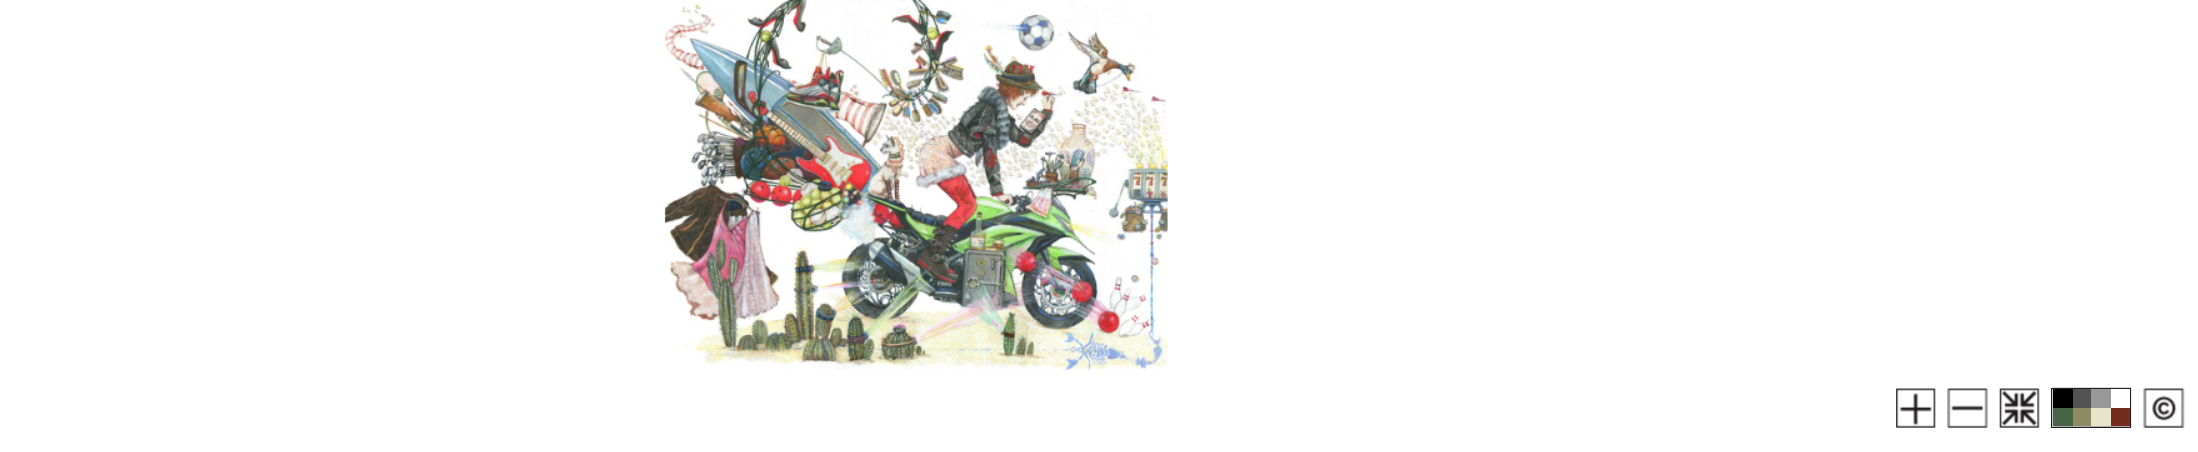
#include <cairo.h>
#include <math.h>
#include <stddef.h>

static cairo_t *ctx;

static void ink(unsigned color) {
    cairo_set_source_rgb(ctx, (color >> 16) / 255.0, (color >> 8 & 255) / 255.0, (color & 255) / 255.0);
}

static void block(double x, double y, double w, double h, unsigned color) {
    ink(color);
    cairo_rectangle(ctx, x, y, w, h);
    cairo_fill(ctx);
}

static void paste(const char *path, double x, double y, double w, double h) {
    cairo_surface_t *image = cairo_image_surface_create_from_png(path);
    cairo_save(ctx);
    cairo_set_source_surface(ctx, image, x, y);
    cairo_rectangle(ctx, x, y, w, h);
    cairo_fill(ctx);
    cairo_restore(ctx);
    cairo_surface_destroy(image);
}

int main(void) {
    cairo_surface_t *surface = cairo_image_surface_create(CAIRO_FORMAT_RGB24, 2198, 452);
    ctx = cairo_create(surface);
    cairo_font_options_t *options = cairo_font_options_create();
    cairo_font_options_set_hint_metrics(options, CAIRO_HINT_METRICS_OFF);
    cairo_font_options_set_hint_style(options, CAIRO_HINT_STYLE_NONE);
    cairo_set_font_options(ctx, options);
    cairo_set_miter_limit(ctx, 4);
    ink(0xffffff);
    cairo_paint(ctx);
    paste("pic1.png", 664, 0, 504, 371);
    paste("pic2.png", 1896, 388, 40, 40);
    paste("pic3.png", 1896, 388, 40, 40);
    paste("pic4.png", 1947, 388, 42, 40);
    paste("pic5.png", 1947, 388, 41, 40);
    paste("pic6.png", 1999, 388, 41, 40);
    paste("pic7.png", 1999, 388, 41, 40);
    paste("pic8.png", 2051, 387, 81, 41);
    cairo_rectangle(ctx, 2051.5, 388.5, 79, 39);
    ink(0x231f20);
    cairo_set_line_width(ctx, 1);
    cairo_stroke(ctx);
    block(2053, 389, 20, 19, 0x000000);
    block(2073, 389, 18, 19, 0x525252);
    block(2091, 389, 20, 19, 0x989898);
    block(2111, 389, 19, 19, 0xffffff);
    block(2053, 408, 20, 18, 0x496346);
    block(2073, 408, 18, 18, 0x8e8a64);
    block(2091, 408, 20, 18, 0xe8e4cb);
    block(2111, 408, 19, 18, 0x742c20);
    paste("pic9.png", 2143, 388, 42, 40);
    paste("pic10.png", 2143, 388, 42, 40);
    cairo_surface_write_to_png(surface, "screenshot.png");
    cairo_font_options_destroy(options);
    cairo_destroy(ctx);
    cairo_surface_destroy(surface);
    return 0;
}
